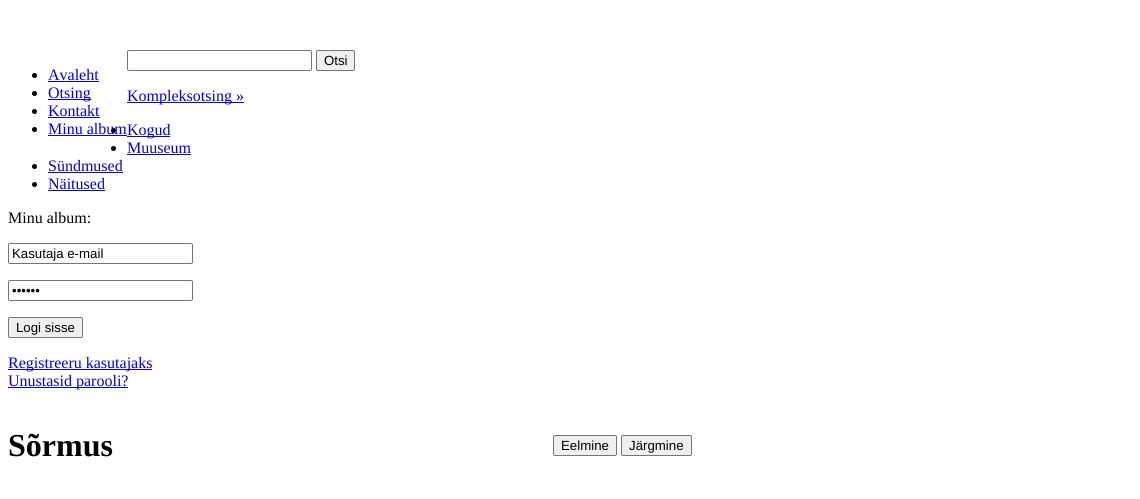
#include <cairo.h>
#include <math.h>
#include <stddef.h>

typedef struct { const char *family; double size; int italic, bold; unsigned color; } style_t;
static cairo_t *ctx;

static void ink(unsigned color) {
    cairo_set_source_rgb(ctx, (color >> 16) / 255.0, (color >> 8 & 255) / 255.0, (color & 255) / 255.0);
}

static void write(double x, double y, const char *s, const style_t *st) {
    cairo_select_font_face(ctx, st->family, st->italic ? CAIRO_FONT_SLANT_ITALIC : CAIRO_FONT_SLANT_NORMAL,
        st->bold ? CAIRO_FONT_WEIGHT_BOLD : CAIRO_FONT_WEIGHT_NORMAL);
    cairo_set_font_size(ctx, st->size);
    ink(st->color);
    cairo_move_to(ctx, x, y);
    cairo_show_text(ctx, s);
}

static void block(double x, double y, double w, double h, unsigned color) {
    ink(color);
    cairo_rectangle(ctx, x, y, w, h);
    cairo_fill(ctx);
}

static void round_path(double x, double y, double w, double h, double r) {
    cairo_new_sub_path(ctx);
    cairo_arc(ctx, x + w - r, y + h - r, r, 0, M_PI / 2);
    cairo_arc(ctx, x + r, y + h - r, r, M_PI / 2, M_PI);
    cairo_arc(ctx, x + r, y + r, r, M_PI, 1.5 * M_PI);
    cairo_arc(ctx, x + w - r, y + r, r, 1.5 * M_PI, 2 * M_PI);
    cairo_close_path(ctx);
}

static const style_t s1 = {"Liberation Serif", 16, 0, 0, 0x0000ee};
static const style_t s2 = {"Liberation Sans", 13.25, 0, 0, 0x000000};
static const style_t s3 = {"Liberation Serif", 16, 0, 0, 0x000000};
static const style_t s4 = {"Liberation Serif", 32, 0, 1, 0x000000};

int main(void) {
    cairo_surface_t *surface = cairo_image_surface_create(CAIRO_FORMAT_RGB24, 1140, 499);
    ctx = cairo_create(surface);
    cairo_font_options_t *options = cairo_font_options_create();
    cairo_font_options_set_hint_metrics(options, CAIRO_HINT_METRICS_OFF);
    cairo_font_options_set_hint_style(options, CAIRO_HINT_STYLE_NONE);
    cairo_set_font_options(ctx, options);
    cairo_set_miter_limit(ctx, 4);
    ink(0xffffff);
    cairo_paint(ctx);
    ink(0x000000);
    cairo_arc(ctx, 34.5, 75.5, 2.5, 0, 2 * M_PI);
    cairo_fill(ctx);
    write(48, 80, "Avaleht", &s1);
    block(48, 81, 51, 1, 0x0000ee);
    ink(0x000000);
    cairo_new_path(ctx);
    cairo_arc(ctx, 34.5, 93.5, 2.5, 0, 2 * M_PI);
    cairo_fill(ctx);
    block(48, 99, 43, 1, 0x0000ee);
    write(48, 98, "Otsing", &s1);
    ink(0x000000);
    cairo_new_path(ctx);
    cairo_arc(ctx, 34.5, 111.5, 2.5, 0, 2 * M_PI);
    cairo_fill(ctx);
    write(48, 116, "Kontakt", &s1);
    block(48, 117, 52, 1, 0x0000ee);
    ink(0x000000);
    cairo_new_path(ctx);
    cairo_arc(ctx, 34.5, 129.5, 2.5, 0, 2 * M_PI);
    cairo_fill(ctx);
    write(48, 134, "Minu album", &s1);
    block(48, 135, 79, 1, 0x0000ee);
    round_path(127.5, 50.5, 184, 20, 1.5);
    ink(0x767676);
    cairo_set_line_width(ctx, 1);
    cairo_stroke(ctx);
    ink(0xefefef);
    round_path(316.5, 50.5, 38, 20, 1.5);
    cairo_fill_preserve(ctx);
    ink(0x767676);
    cairo_stroke(ctx);
    write(324, 65, "Otsi", &s2);
    block(127, 102, 117, 1, 0x0000ee);
    write(127, 101, "Kompleksotsing »", &s1);
    ink(0x000000);
    cairo_new_path(ctx);
    cairo_arc(ctx, 113.5, 130.5, 2.5, 0, 2 * M_PI);
    cairo_fill(ctx);
    block(127, 136, 43, 1, 0x0000ee);
    write(127, 135, "Kogud", &s1);
    ink(0x000000);
    cairo_new_path(ctx);
    cairo_arc(ctx, 113.5, 148.5, 2.5, 0, 2 * M_PI);
    cairo_fill(ctx);
    write(127, 153, "Muuseum", &s1);
    block(127, 154, 64, 1, 0x0000ee);
    ink(0x000000);
    cairo_new_path(ctx);
    cairo_arc(ctx, 34.5, 166.5, 2.5, 0, 2 * M_PI);
    cairo_fill(ctx);
    write(48, 171, "Sündmused", &s1);
    block(48, 172, 75, 1, 0x0000ee);
    ink(0x000000);
    cairo_new_path(ctx);
    cairo_arc(ctx, 34.5, 184.5, 2.5, 0, 2 * M_PI);
    cairo_fill(ctx);
    write(48, 189, "Näitused", &s1);
    block(48, 190, 57, 1, 0x0000ee);
    write(8, 223, "Minu album:", &s3);
    round_path(8.5, 243.5, 184, 20, 1.5);
    ink(0x767676);
    cairo_stroke(ctx);
    write(12, 258, "Kasutaja e-mail", &s2);
    round_path(8.5, 280.5, 184, 20, 1.5);
    ink(0x767676);
    cairo_stroke(ctx);
    write(12, 295, "••••••", &s2);
    ink(0xefefef);
    round_path(8.5, 317.5, 74, 20, 1.5);
    cairo_fill_preserve(ctx);
    ink(0x767676);
    cairo_stroke(ctx);
    write(16, 332, "Logi sisse", &s2);
    block(8, 369, 144, 1, 0x0000ee);
    write(8, 368, "Registreeru kasutajaks", &s1);
    block(8, 387, 120, 1, 0x0000ee);
    write(8, 386, "Unustasid parooli?", &s1);
    write(8, 456, "Sõrmus", &s4);
    ink(0xefefef);
    round_path(553.5, 435.5, 63, 20, 1.5);
    cairo_fill_preserve(ctx);
    ink(0x767676);
    cairo_stroke(ctx);
    write(561, 450, "Eelmine", &s2);
    ink(0xefefef);
    round_path(621.5, 435.5, 70, 20, 1.5);
    cairo_fill_preserve(ctx);
    ink(0x767676);
    cairo_stroke(ctx);
    write(629, 450, "Järgmine", &s2);
    cairo_surface_write_to_png(surface, "screenshot.png");
    cairo_font_options_destroy(options);
    cairo_destroy(ctx);
    cairo_surface_destroy(surface);
    return 0;
}
